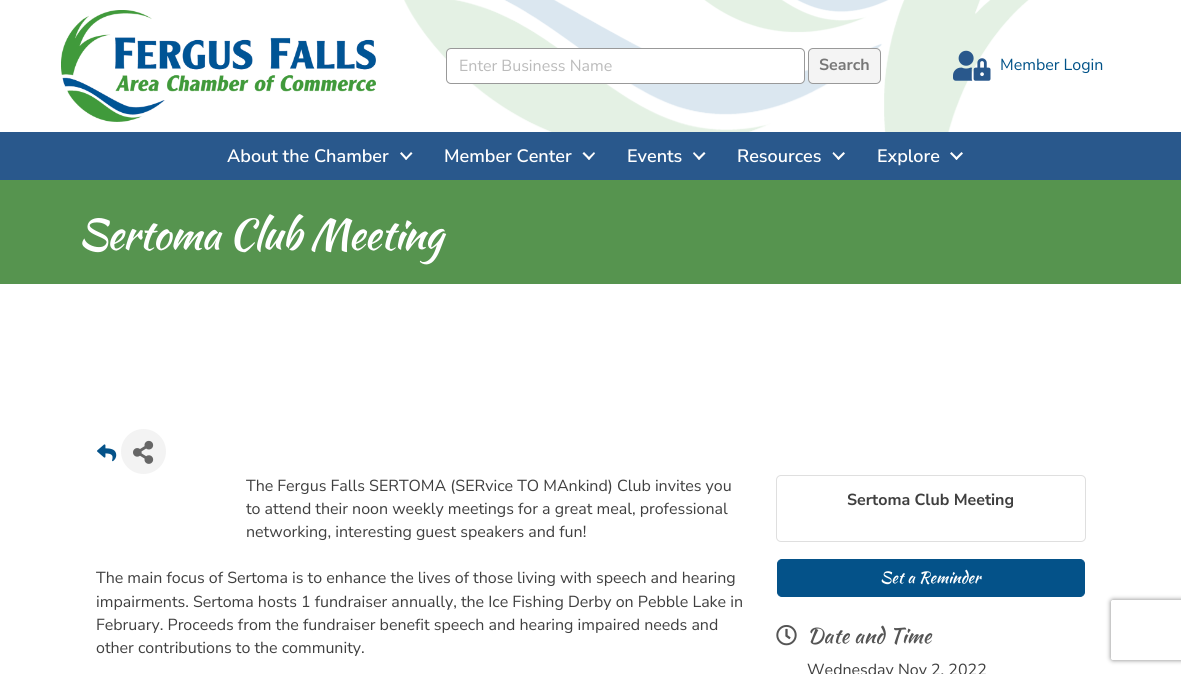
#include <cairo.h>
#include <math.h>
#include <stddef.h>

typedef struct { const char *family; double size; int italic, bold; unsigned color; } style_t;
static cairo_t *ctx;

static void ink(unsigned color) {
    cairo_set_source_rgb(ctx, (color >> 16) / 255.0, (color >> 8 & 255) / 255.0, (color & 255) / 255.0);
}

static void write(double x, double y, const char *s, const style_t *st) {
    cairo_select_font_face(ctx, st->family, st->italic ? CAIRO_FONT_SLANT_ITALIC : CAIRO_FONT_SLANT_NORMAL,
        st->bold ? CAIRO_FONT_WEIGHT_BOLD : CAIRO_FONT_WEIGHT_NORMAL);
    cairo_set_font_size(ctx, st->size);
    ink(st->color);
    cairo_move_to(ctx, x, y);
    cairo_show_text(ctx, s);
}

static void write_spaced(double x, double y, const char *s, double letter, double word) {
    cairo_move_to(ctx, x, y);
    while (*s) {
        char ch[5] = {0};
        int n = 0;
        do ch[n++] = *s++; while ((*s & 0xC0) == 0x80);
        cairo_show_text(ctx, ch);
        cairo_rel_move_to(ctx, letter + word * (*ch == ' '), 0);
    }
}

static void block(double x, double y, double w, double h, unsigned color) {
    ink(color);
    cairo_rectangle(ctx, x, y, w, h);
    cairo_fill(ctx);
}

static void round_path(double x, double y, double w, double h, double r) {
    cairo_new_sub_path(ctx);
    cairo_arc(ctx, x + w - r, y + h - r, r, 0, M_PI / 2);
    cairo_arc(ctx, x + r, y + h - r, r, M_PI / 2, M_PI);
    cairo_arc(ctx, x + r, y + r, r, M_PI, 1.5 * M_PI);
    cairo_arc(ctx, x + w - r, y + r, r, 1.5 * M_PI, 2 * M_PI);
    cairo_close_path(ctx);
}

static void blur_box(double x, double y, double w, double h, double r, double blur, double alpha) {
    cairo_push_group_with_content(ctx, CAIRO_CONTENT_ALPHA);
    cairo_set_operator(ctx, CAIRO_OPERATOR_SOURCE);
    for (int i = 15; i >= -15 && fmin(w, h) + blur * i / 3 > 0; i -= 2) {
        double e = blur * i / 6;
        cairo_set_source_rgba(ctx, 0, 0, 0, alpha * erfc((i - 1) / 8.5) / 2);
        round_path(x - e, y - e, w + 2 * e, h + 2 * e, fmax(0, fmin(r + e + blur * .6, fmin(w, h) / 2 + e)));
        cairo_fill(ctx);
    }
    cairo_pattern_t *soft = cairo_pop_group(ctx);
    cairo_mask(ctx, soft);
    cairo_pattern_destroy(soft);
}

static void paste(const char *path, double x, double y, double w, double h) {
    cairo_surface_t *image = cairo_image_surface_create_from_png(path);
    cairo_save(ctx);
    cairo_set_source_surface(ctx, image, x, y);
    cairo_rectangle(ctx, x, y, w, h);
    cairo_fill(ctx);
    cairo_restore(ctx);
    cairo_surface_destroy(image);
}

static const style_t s1 = {"Nunito Sans", 16, 0, 0, 0xbbbbbb};
static const style_t s2 = {"Nunito Sans", 16, 0, 1, 0x777777};
static const style_t s3 = {"Nunito Sans", 16, 0, 0, 0x005288};
static const style_t s4 = {"Nunito Sans SemiBold", 18, 0, 0, 0xffffff};
static const style_t s5 = {"Nunito Sans", 16, 0, 0, 0x3f3f3f};
static const style_t s6 = {"Nunito Sans", 16, 0, 1, 0x3f3f3f};
static const style_t s7 = {"Kaushan Script", 16, 0, 0, 0xffffff};
static const style_t s8 = {"Kaushan Script", 21, 0, 0, 0x555555};

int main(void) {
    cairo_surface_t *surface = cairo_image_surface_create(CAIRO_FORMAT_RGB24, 1181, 674);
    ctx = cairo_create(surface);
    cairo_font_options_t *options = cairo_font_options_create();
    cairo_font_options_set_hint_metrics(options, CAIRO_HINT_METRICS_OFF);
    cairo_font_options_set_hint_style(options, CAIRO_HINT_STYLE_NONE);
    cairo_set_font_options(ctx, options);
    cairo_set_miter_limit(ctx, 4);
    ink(0xffffff);
    cairo_paint(ctx);
    paste("pic1.png", 404, 0, 625, 132);
    paste("pic2.png", 61, 10, 315, 112);
    ink(0xffffff);
    round_path(446.5, 48.5, 358, 35, 4.5);
    cairo_fill_preserve(ctx);
    ink(0x999999);
    cairo_set_line_width(ctx, 1);
    cairo_stroke(ctx);
    write(459, 71, "Enter Business Name", &s1);
    ink(0xf4f4f4);
    round_path(808.5, 48.5, 72, 35, 4.5);
    cairo_fill_preserve(ctx);
    ink(0x999999);
    cairo_stroke(ctx);
    write(819, 70, "Search", &s2);
    paste("pic3.png", 953, 50, 38, 31);
    write(1000, 70, "Member Login", &s3);
    block(0, 132, 1181, 48, 0x29588c);
    write(227, 162, "About the Chamber", &s4);
    cairo_new_path(ctx);
    cairo_move_to(ctx, 411, 152);
    cairo_line_to(ctx, 412.5, 153.5);
    cairo_line_to(ctx, 406, 160);
    cairo_line_to(ctx, 405, 158.5);
    cairo_close_path(ctx);
    cairo_fill(ctx);
    cairo_new_path(ctx);
    cairo_move_to(ctx, 401.5, 152);
    cairo_line_to(ctx, 407.5, 158.5);
    cairo_line_to(ctx, 406, 160);
    cairo_line_to(ctx, 400, 153.5);
    cairo_close_path(ctx);
    cairo_fill(ctx);
    write(444, 162, "Member Center", &s4);
    cairo_new_path(ctx);
    cairo_move_to(ctx, 594, 152);
    cairo_line_to(ctx, 595, 153.5);
    cairo_line_to(ctx, 589, 160);
    cairo_line_to(ctx, 587.5, 158.5);
    cairo_close_path(ctx);
    cairo_fill(ctx);
    cairo_new_path(ctx);
    cairo_move_to(ctx, 584, 152);
    cairo_line_to(ctx, 590.5, 158.5);
    cairo_line_to(ctx, 589, 160);
    cairo_line_to(ctx, 582.5, 153.5);
    cairo_close_path(ctx);
    cairo_fill(ctx);
    write(627, 162, "Events", &s4);
    cairo_new_path(ctx);
    cairo_move_to(ctx, 704, 152);
    cairo_line_to(ctx, 705.5, 153.5);
    cairo_line_to(ctx, 699, 160);
    cairo_line_to(ctx, 697.5, 158.5);
    cairo_close_path(ctx);
    cairo_fill(ctx);
    cairo_new_path(ctx);
    cairo_move_to(ctx, 694, 152);
    cairo_line_to(ctx, 700.5, 158.5);
    cairo_line_to(ctx, 699, 160);
    cairo_line_to(ctx, 693, 153.5);
    cairo_close_path(ctx);
    cairo_fill(ctx);
    write(737, 162, "Resources", &s4);
    cairo_new_path(ctx);
    cairo_move_to(ctx, 843.5, 152);
    cairo_line_to(ctx, 845, 153.5);
    cairo_line_to(ctx, 838.5, 160);
    cairo_line_to(ctx, 837, 158.5);
    cairo_close_path(ctx);
    cairo_fill(ctx);
    cairo_new_path(ctx);
    cairo_move_to(ctx, 833.5, 152);
    cairo_line_to(ctx, 840, 158.5);
    cairo_line_to(ctx, 838.5, 160);
    cairo_line_to(ctx, 832.5, 153.5);
    cairo_close_path(ctx);
    cairo_fill(ctx);
    write(877, 162, "Explore", &s4);
    cairo_new_path(ctx);
    cairo_move_to(ctx, 961.5, 152);
    cairo_line_to(ctx, 963, 153.5);
    cairo_line_to(ctx, 956.5, 160);
    cairo_line_to(ctx, 955, 158.5);
    cairo_close_path(ctx);
    cairo_fill(ctx);
    cairo_new_path(ctx);
    cairo_move_to(ctx, 951.5, 152);
    cairo_line_to(ctx, 958, 158.5);
    cairo_line_to(ctx, 956.5, 160);
    cairo_line_to(ctx, 950, 153.5);
    cairo_close_path(ctx);
    cairo_fill(ctx);
    block(0, 180, 1181, 104, 0x56944f);
    cairo_select_font_face(ctx, "Kaushan Script", CAIRO_FONT_SLANT_NORMAL, CAIRO_FONT_WEIGHT_NORMAL);
    cairo_set_font_size(ctx, 42);
    ink(0xffffff);
    write_spaced(78, 249, "Sertoma Club Meeting", -1, 0);
    paste("pic4.png", 97, 444, 20, 18);
    ink(0xf3f3f3);
    cairo_arc(ctx, 143.5, 451.5, 22.5, 0, 2 * M_PI);
    cairo_fill(ctx);
    paste("pic5.png", 133, 440, 21, 24);
    write(246, 491, "The Fergus Falls SERTOMA (SERvice TO MAnkind) Club invites you", &s5);
    write(246, 514, "to attend their noon weekly meetings for a great meal, professional", &s5);
    write(246, 537, "networking, interesting guest speakers and fun!", &s5);
    write(96, 583, "The main focus of Sertoma is to enhance the lives of those living with speech and hearing", &s5);
    write(96, 607, "impairments. Sertoma hosts 1 fundraiser annually, the Ice Fishing Derby on Pebble Lake in", &s5);
    write(96, 630, "February. Proceeds from the fundraiser benefit speech and hearing impaired needs and", &s5);
    write(96, 653, "other contributions to the community.", &s5);
    round_path(776.5, 475.5, 309, 66, 4.5);
    ink(0xdfdfdf);
    cairo_stroke(ctx);
    write(847, 505, "Sertoma Club Meeting", &s6);
    ink(0x045289);
    round_path(777.5, 559.5, 307, 37, 4.5);
    cairo_fill_preserve(ctx);
    cairo_stroke(ctx);
    write(880, 583, "Set a Reminder", &s7);
    paste("pic6.png", 776, 625, 21, 21);
    write(807, 643, "Date and Time", &s8);
    write(807, 675, "Wednesday Nov 2, 2022", &s5);
    cairo_save(ctx);
    cairo_set_fill_rule(ctx, CAIRO_FILL_RULE_EVEN_ODD);
    cairo_new_path(ctx);
    cairo_move_to(ctx, 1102, 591);
    cairo_line_to(ctx, 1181, 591);
    cairo_line_to(ctx, 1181, 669);
    cairo_line_to(ctx, 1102, 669);
    cairo_close_path(ctx);
    cairo_move_to(ctx, 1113, 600);
    cairo_line_to(ctx, 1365, 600);
    cairo_curve_to(ctx, 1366, 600, 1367, 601, 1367, 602);
    cairo_line_to(ctx, 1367, 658);
    cairo_curve_to(ctx, 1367, 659, 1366, 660, 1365, 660);
    cairo_line_to(ctx, 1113, 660);
    cairo_curve_to(ctx, 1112, 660, 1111, 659, 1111, 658);
    cairo_line_to(ctx, 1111, 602);
    cairo_curve_to(ctx, 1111, 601, 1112, 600, 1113, 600);
    cairo_close_path(ctx);
    cairo_clip(ctx);
    ink(0x808080);
    blur_box(1111, 600, 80, 60, 2, 2.5, 1);
    cairo_restore(ctx);
    cairo_surface_write_to_png(surface, "screenshot.png");
    cairo_font_options_destroy(options);
    cairo_destroy(ctx);
    cairo_surface_destroy(surface);
    return 0;
}
